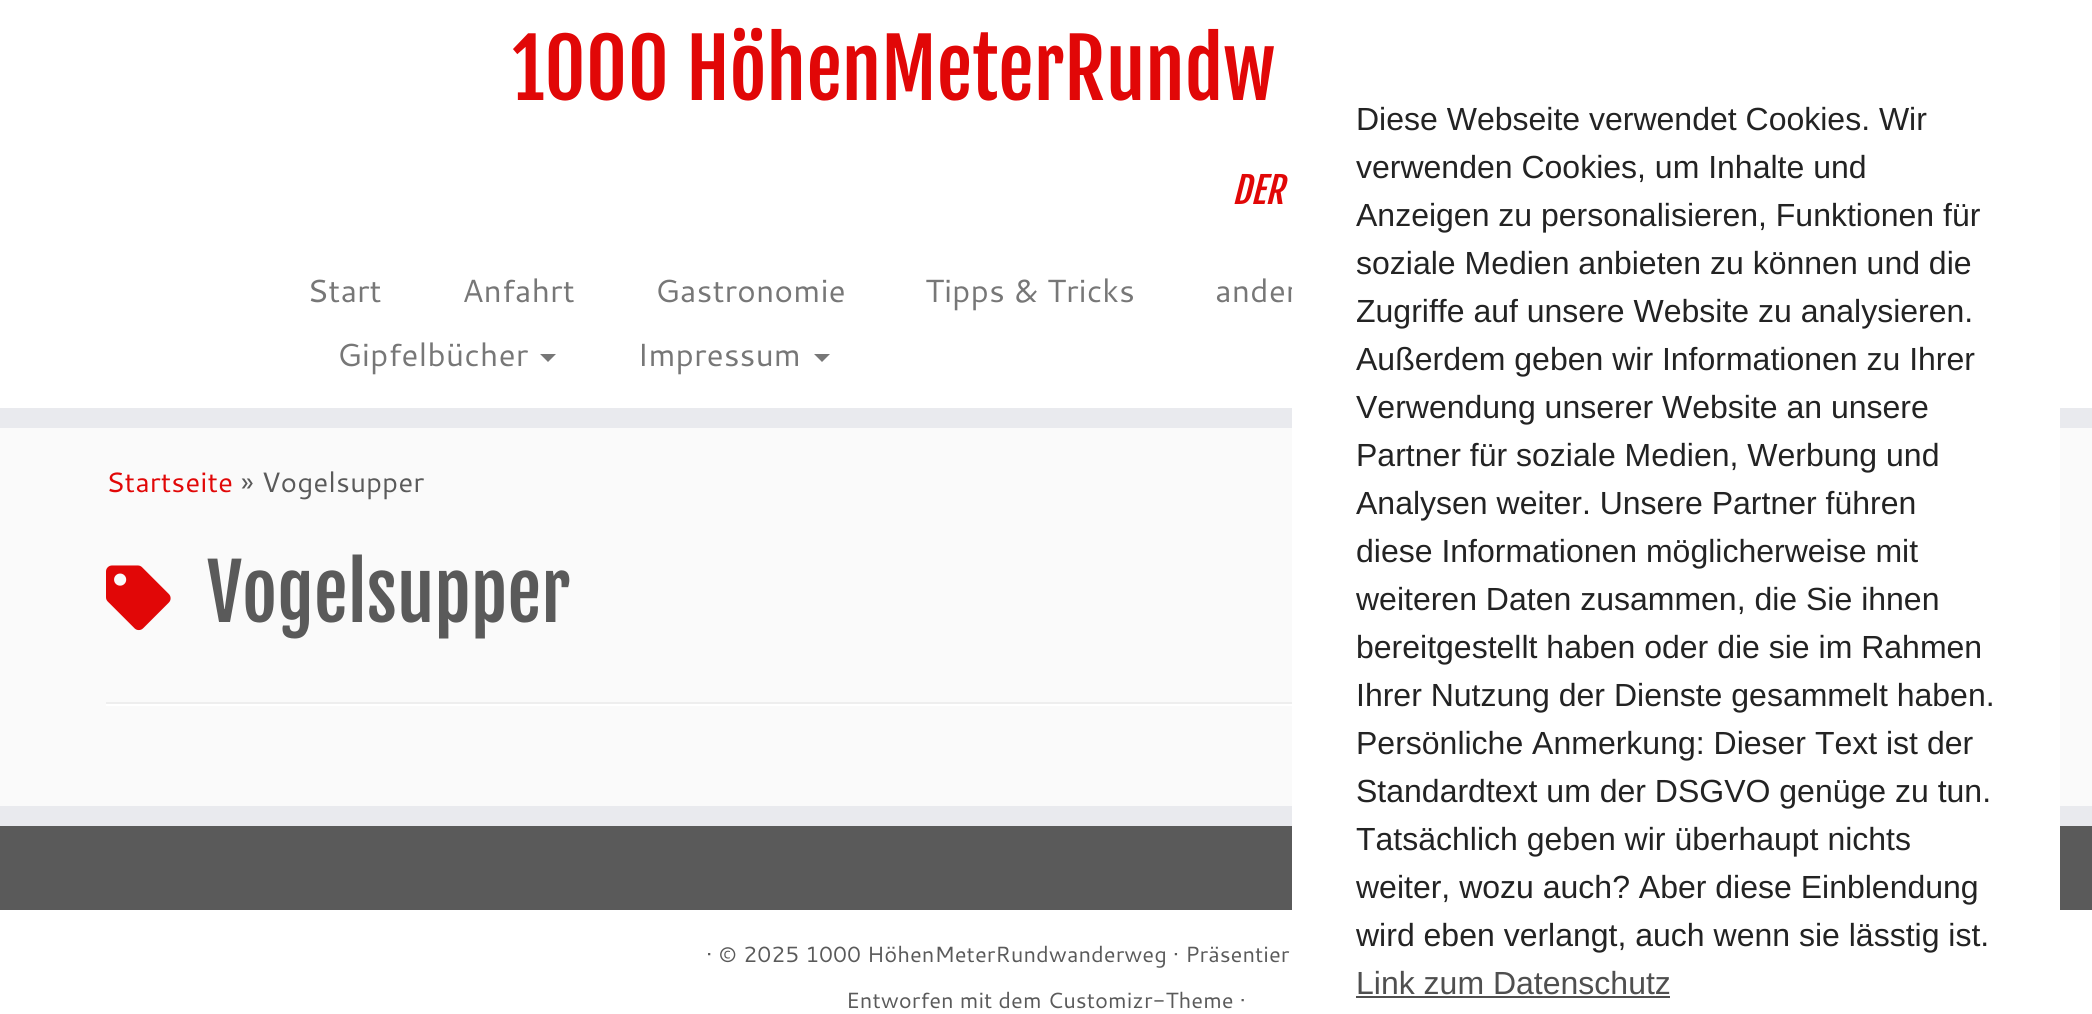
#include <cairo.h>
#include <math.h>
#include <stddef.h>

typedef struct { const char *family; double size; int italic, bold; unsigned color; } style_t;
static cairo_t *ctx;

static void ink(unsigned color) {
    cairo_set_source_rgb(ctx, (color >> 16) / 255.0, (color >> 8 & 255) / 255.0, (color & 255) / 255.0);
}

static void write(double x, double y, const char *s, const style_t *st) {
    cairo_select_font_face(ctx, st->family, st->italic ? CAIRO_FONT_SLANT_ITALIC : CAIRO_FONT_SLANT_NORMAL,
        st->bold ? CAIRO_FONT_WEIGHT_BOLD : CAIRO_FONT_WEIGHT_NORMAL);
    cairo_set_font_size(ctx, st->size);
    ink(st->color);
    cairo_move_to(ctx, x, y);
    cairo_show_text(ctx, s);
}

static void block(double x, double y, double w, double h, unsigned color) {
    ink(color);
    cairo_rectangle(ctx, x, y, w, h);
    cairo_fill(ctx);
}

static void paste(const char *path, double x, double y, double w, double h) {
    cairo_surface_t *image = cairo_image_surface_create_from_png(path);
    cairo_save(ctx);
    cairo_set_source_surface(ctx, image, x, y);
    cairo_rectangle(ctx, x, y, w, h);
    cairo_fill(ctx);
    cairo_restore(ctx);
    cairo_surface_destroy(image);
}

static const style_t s1 = {"Fjalla One", 80, 0, 0, 0xe10707};
static const style_t s2 = {"Fjalla One", 36, 1, 0, 0xe10707};
static const style_t s3 = {"Cantarell", 32, 0, 0, 0x777777};
static const style_t s4 = {"Cantarell", 28, 0, 0, 0xe10707};
static const style_t s5 = {"Cantarell", 28, 0, 0, 0x5a5a5a};
static const style_t s6 = {"Fjalla One", 76, 0, 0, 0x5a5a5a};
static const style_t s7 = {"Cantarell", 22, 0, 0, 0x5a5a5a};
static const style_t s8 = {"Liberation Sans", 32, 0, 0, 0x232323};
static const style_t s9 = {"Liberation Sans", 32, 0, 0, 0x4f4f4f};

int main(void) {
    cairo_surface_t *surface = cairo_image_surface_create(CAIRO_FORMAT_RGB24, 2092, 1014);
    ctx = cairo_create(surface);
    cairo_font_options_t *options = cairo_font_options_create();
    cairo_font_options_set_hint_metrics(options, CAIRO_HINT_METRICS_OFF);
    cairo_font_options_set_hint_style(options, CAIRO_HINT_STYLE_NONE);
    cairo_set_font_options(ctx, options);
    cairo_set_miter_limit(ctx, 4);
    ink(0xfafafa);
    cairo_paint(ctx);
    block(0, 0, 2092, 408, 0xffffff);
    block(0, 408, 2092, 20, 0xe9eaee);
    write(512, 100, "1000 HöhenMeterRundw", &s1);
    write(1232, 204, "DER", &s2);
    write(307, 302, "Start", &s3);
    write(462, 302, "Anfahrt", &s3);
    write(655, 302, "Gastronomie", &s3);
    write(925, 302, "Tipps & Tricks", &s3);
    write(1215, 302, "ander", &s3);
    write(337, 366, "Gipfelbücher", &s3);
    cairo_new_path(ctx);
    cairo_move_to(ctx, 540, 354);
    cairo_line_to(ctx, 556, 354);
    cairo_line_to(ctx, 548, 362);
    cairo_close_path(ctx);
    cairo_fill(ctx);
    write(637, 366, "Impressum", &s3);
    cairo_new_path(ctx);
    cairo_move_to(ctx, 814, 354);
    cairo_line_to(ctx, 830, 354);
    cairo_line_to(ctx, 822, 362);
    cairo_close_path(ctx);
    cairo_fill(ctx);
    write(106, 492, "Startseite", &s4);
    write(241, 492, "» Vogelsupper", &s5);
    paste("pic1.png", 106, 565, 65, 66);
    write(207, 622, "Vogelsupper", &s6);
    block(106, 702, 1186, 2, 0xeeeeee);
    block(106, 704, 1186, 2, 0xffffff);
    block(0, 826, 2092, 84, 0x5a5a5a);
    block(0, 806, 2092, 20, 0xe9eaee);
    block(0, 910, 2092, 104, 0xffffff);
    write(706, 962, "· © 2025 1000 HöhenMeterRundwanderweg · Präsentier", &s7);
    write(846, 1008, "Entworfen mit dem Customizr-Theme ·", &s7);
    block(1292, 286, 768, 624, 0xffffff);
    write(1356, 130, "Diese Webseite verwendet Cookies. Wir", &s8);
    write(1356, 178, "verwenden Cookies, um Inhalte und", &s8);
    write(1356, 226, "Anzeigen zu personalisieren, Funktionen für", &s8);
    write(1356, 274, "soziale Medien anbieten zu können und die", &s8);
    write(1356, 322, "Zugriffe auf unsere Website zu analysieren.", &s8);
    write(1356, 370, "Außerdem geben wir Informationen zu Ihrer", &s8);
    write(1356, 418, "Verwendung unserer Website an unsere", &s8);
    write(1356, 466, "Partner für soziale Medien, Werbung und", &s8);
    write(1356, 514, "Analysen weiter. Unsere Partner führen", &s8);
    write(1356, 562, "diese Informationen möglicherweise mit", &s8);
    write(1356, 610, "weiteren Daten zusammen, die Sie ihnen", &s8);
    write(1356, 658, "bereitgestellt haben oder die sie im Rahmen", &s8);
    write(1356, 706, "Ihrer Nutzung der Dienste gesammelt haben.", &s8);
    write(1356, 754, "Persönliche Anmerkung: Dieser Text ist der", &s8);
    write(1356, 802, "Standardtext um der DSGVO genüge zu tun.", &s8);
    write(1356, 850, "Tatsächlich geben wir überhaupt nichts", &s8);
    write(1356, 898, "weiter, wozu auch? Aber diese Einblendung", &s8);
    write(1356, 946, "wird eben verlangt, auch wenn sie lässtig ist.", &s8);
    write(1356, 994, "Link zum Datenschutz", &s9);
    block(1356, 996, 314, 2, 0x4f4f4f);
    cairo_surface_write_to_png(surface, "screenshot.png");
    cairo_font_options_destroy(options);
    cairo_destroy(ctx);
    cairo_surface_destroy(surface);
    return 0;
}
